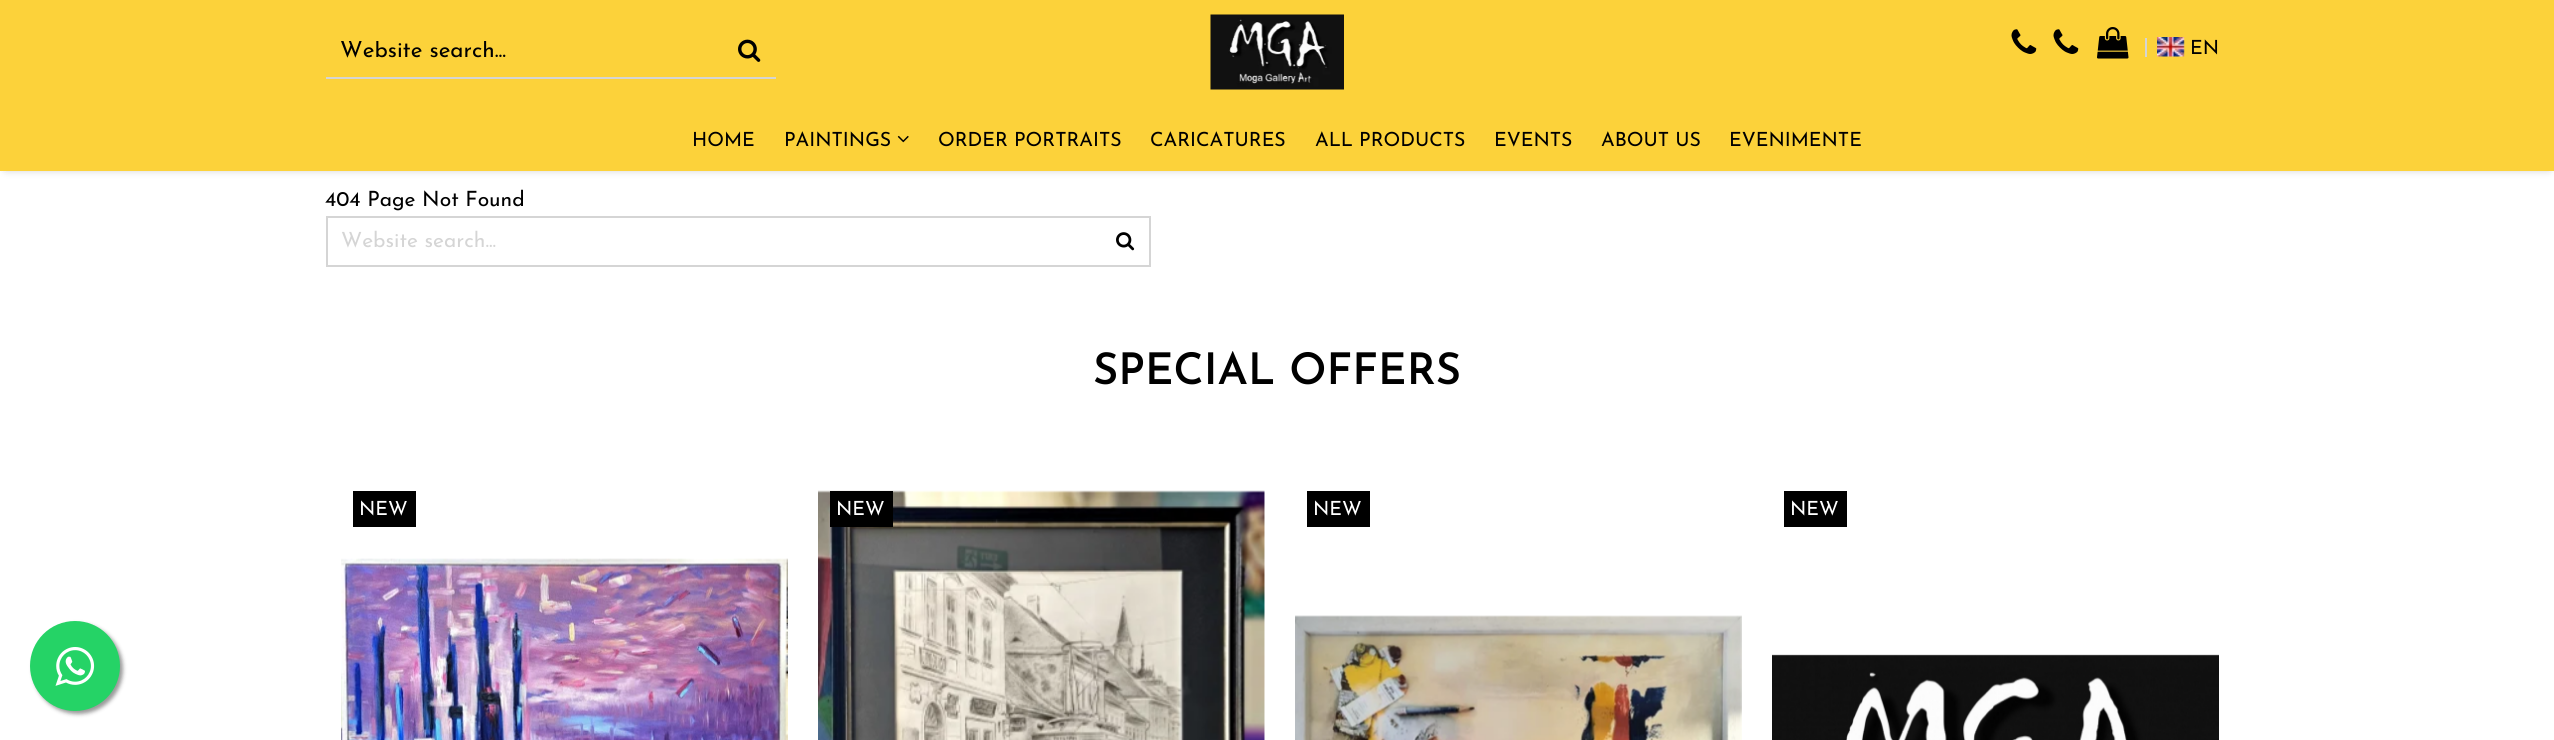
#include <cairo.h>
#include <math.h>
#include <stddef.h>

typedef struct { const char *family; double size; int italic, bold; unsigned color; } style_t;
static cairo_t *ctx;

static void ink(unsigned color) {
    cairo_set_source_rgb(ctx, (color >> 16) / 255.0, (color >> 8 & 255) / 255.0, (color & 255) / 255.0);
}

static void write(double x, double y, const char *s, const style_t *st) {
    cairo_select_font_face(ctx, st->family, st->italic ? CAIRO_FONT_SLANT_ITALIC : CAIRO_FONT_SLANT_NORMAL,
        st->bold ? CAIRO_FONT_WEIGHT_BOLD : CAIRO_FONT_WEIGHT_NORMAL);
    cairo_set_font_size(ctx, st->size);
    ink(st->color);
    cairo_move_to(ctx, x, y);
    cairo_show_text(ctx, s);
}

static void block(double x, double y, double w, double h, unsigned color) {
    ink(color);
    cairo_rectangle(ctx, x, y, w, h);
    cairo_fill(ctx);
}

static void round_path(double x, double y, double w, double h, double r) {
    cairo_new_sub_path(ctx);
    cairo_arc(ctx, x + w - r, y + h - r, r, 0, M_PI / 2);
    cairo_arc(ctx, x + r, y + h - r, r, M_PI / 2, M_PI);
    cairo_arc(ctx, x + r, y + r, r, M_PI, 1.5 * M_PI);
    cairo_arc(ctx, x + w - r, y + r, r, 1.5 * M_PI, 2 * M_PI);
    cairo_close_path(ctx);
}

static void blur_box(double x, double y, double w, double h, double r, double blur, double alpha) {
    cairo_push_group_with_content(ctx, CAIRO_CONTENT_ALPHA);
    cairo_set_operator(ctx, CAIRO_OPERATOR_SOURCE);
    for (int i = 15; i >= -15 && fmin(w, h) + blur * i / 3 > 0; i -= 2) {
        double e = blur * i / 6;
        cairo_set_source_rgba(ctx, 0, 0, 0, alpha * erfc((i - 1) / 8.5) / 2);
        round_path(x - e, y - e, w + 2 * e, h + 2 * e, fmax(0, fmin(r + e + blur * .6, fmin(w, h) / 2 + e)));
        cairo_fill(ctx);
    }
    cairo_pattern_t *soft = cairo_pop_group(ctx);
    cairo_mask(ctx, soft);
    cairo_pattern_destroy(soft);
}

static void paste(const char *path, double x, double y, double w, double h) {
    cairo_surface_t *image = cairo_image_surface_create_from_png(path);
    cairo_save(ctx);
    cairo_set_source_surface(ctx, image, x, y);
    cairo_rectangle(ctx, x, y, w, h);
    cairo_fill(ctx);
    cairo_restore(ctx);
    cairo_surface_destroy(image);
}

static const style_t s1 = {"Josefin Sans", 22.5, 0, 0, 0x000000};
static const style_t s2 = {"Josefin Sans", 19.5, 0, 0, 0x000000};
static const style_t s3 = {"Josefin Sans", 21, 0, 0, 0x000000};
static const style_t s4 = {"Josefin Sans", 21, 0, 0, 0xd5d5d5};
static const style_t s5 = {"Josefin Sans SemiBold", 43.5, 0, 0, 0x000000};
static const style_t s6 = {"Josefin Sans", 19.5, 0, 0, 0xffffff};

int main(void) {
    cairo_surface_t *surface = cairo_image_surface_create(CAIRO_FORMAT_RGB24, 2554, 740);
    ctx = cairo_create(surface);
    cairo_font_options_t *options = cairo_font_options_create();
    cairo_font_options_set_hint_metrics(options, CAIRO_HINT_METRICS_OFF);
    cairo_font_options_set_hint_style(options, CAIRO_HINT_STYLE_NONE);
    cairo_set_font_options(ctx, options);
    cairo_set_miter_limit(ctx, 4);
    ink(0xffffff);
    cairo_paint(ctx);
    ink(0x000000);
    blur_box(6, 9, 2543, 159, 0, 5, 0.3);
    block(0, 0, 2554, 171, 0xfcd23a);
    block(326, 77, 450, 2, 0xd5d5d5);
    cairo_save(ctx);
    cairo_rectangle(ctx, 341, 41, 432, 22);
    cairo_clip(ctx);
    write(340, 57, "Website search...", &s1);
    cairo_restore(ctx);
    paste("pic1.png", 738, 39, 23, 23);
    paste("pic2.png", 1210, 14, 134, 76);
    paste("pic3.png", 2011, 29, 26, 25);
    paste("pic3.png", 2053, 29, 26, 25);
    paste("pic4.png", 2097, 27, 32, 32);
    paste("pic5.png", 2157, 37, 28, 20);
    write(2190, 54, "EN", &s2);
    block(2145, 38, 2, 19, 0xd5d5d5);
    write(692, 146, "HOME", &s2);
    write(784, 146, "PAINTINGS", &s2);
    paste("pic6.png", 897, 135, 12, 8);
    write(938, 146, "ORDER PORTRAITS", &s2);
    write(1150, 146, "CARICATURES", &s2);
    write(1315, 146, "ALL PRODUCTS", &s2);
    write(1494, 146, "EVENTS", &s2);
    write(1601, 146, "ABOUT US", &s2);
    write(1729, 146, "EVENIMENTE", &s2);
    write(325, 206, "404 Page Not Found", &s3);
    cairo_rectangle(ctx, 327, 217, 823, 49);
    ink(0xd5d5d5);
    cairo_stroke(ctx);
    write(341, 247, "Website search...", &s4);
    paste("pic7.png", 1116, 232, 19, 19);
    write(1093, 384, "SPECIAL OFFERS", &s5);
    block(353, 491, 63, 36, 0x000000);
    write(359, 515, "NEW", &s6);
    paste("pic8.png", 341, 558, 447, 182);
    paste("pic9.png", 818, 490, 447, 250);
    block(830, 491, 63, 36, 0x000000);
    write(836, 515, "NEW", &s6);
    block(1307, 491, 63, 36, 0x000000);
    write(1313, 515, "NEW", &s6);
    paste("pic10.png", 1295, 615, 447, 125);
    block(1784, 491, 63, 36, 0x000000);
    write(1790, 515, "NEW", &s6);
    paste("pic11.png", 1772, 654, 447, 86);
    ink(0x999999);
    blur_box(33, 624, 90, 90, 45, 2, 1);
    ink(0x25d366);
    cairo_arc(ctx, 75, 666, 45, 0, 2 * M_PI);
    cairo_fill(ctx);
    paste("pic12.png", 55, 647, 40, 39);
    cairo_surface_write_to_png(surface, "screenshot.png");
    cairo_font_options_destroy(options);
    cairo_destroy(ctx);
    cairo_surface_destroy(surface);
    return 0;
}
